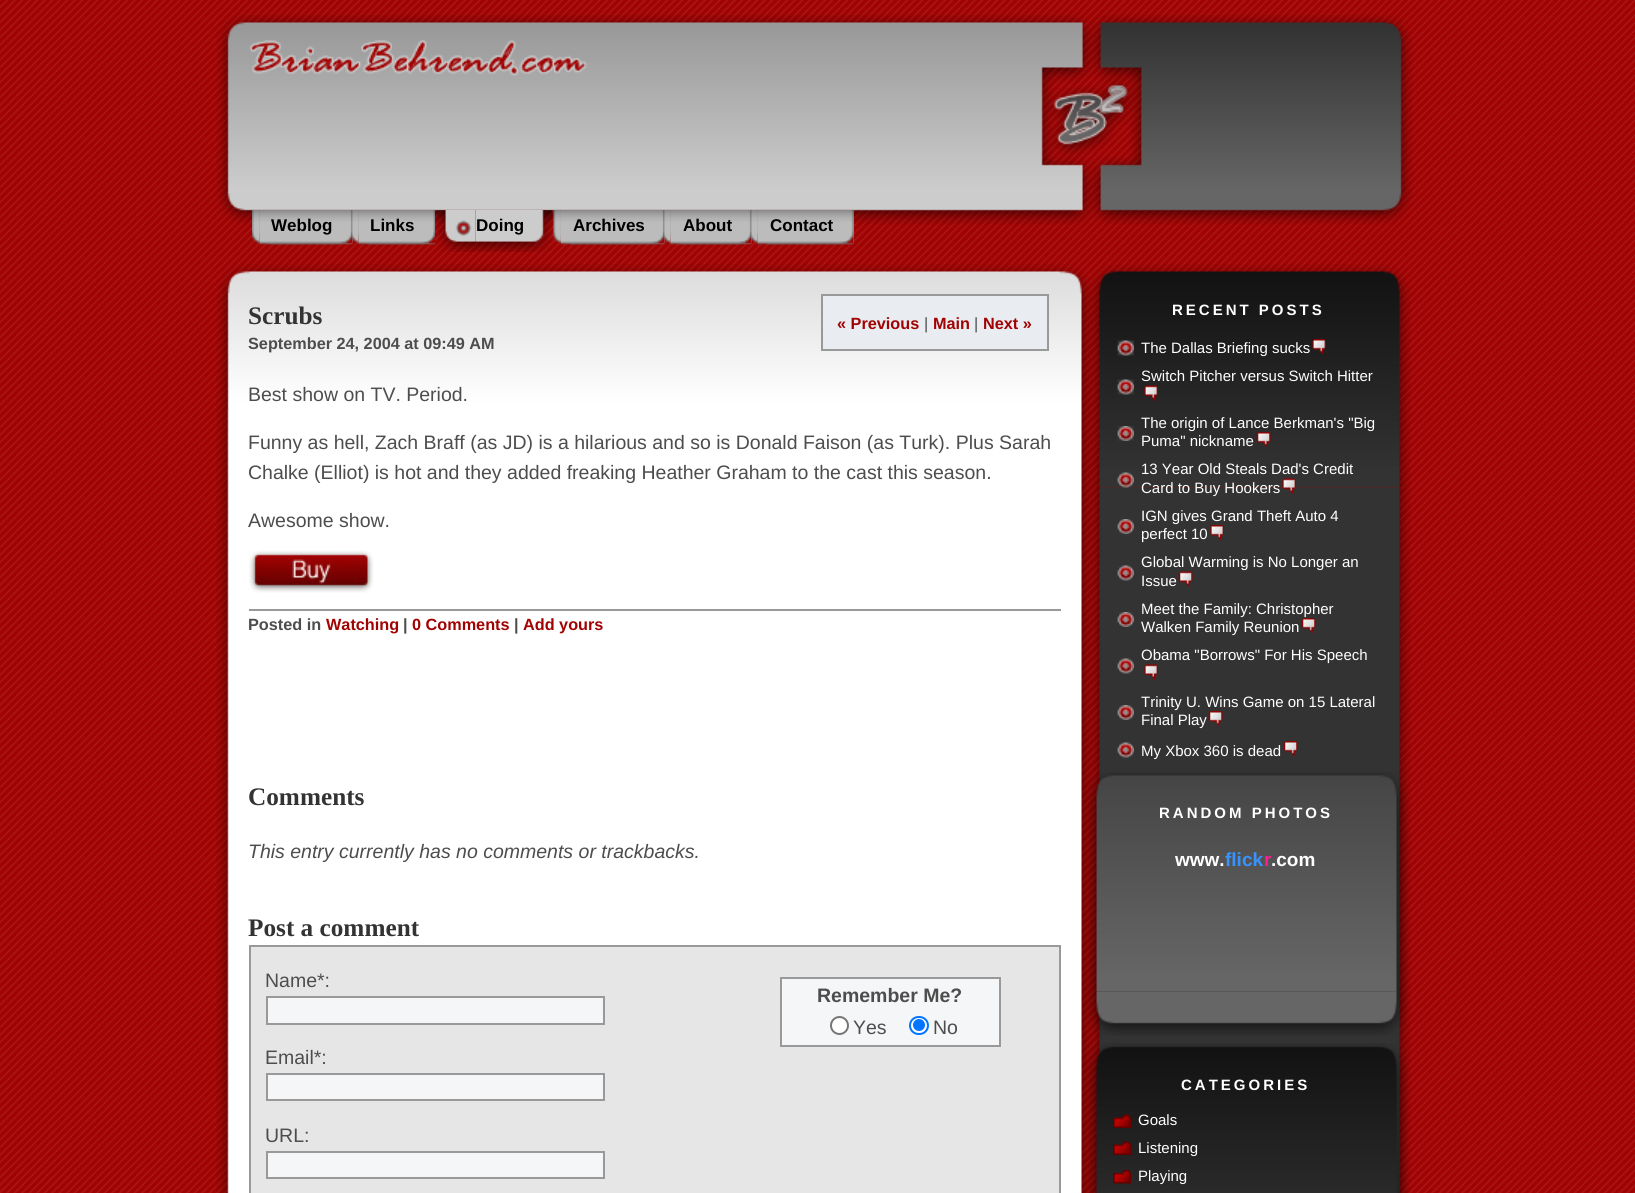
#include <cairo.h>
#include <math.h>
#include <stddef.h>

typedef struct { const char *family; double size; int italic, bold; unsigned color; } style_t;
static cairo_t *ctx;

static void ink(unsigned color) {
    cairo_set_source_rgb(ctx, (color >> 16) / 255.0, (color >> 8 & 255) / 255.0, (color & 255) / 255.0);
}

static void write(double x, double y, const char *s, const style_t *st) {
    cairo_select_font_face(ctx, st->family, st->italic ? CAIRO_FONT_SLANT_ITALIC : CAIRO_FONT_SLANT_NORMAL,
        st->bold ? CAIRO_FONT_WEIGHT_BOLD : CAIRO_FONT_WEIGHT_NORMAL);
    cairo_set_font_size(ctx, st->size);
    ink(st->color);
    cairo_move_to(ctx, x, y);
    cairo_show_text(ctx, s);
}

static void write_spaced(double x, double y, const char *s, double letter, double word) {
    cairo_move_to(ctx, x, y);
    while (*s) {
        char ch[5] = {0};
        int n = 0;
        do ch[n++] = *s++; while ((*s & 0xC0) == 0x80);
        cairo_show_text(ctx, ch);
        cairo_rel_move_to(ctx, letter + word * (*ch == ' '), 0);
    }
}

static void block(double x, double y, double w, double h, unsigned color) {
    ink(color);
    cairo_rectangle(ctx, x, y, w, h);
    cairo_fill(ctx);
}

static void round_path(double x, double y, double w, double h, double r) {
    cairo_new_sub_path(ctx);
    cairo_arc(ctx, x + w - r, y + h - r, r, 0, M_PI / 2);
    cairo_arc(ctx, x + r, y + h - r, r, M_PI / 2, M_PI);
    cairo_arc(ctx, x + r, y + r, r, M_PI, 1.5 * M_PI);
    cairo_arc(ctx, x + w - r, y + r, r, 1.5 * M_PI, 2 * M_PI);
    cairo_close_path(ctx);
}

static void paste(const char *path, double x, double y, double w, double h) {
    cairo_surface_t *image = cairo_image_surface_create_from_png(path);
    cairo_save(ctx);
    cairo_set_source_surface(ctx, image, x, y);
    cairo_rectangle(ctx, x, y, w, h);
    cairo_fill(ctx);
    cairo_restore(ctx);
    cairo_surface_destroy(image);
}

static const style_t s1 = {"Liberation Sans", 17, 0, 1, 0x000000};
static const style_t s2 = {"Liberation Serif", 25.25, 0, 1, 0x333333};
static const style_t s3 = {"Liberation Sans", 16.25, 0, 1, 0xa10202};
static const style_t s4 = {"Liberation Sans", 16.25, 0, 0, 0x4d4d4d};
static const style_t s5 = {"Liberation Sans", 16.25, 0, 1, 0x4d4d4d};
static const style_t s6 = {"Liberation Sans", 19.5, 0, 0, 0x4d4d4d};
static const style_t s7 = {"Liberation Sans", 19.5, 1, 0, 0x4d4d4d};
static const style_t s8 = {"Liberation Sans", 19.5, 0, 1, 0x4d4d4d};
static const style_t s9 = {"Liberation Sans", 15, 0, 0, 0xffffff};
static const style_t s10 = {"Liberation Sans", 19, 0, 1, 0xffffff};
static const style_t s11 = {"Liberation Sans", 19, 0, 1, 0x3993ff};
static const style_t s12 = {"Liberation Sans", 19, 0, 1, 0xff1c92};

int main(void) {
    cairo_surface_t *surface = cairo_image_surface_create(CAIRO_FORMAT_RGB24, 1635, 1193);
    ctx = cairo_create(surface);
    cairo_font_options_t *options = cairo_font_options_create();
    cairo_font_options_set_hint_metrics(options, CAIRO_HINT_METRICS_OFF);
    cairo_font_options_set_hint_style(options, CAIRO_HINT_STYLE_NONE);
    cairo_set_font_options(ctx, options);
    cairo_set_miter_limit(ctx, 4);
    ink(0xffffff);
    cairo_paint(ctx);
    paste("pic1.png", 0, 0, 1635, 1193);
    paste("pic2.png", 216, 15, 1197, 210);
    paste("pic3.png", 252, 210, 101, 35);
    paste("pic4.png", 259, 210, 94, 35);
    write(271, 231, "Weblog", &s1);
    paste("pic5.png", 351, 210, 84, 35);
    paste("pic6.png", 358, 210, 77, 35);
    write(370, 231, "Links", &s1);
    paste("pic7.png", 436, 210, 40, 42);
    paste("pic8.png", 475, 210, 77, 42);
    write(476, 231, "Doing", &s1);
    paste("pic9.png", 553, 210, 112, 35);
    paste("pic10.png", 561, 210, 104, 35);
    write(573, 231, "Archives", &s1);
    paste("pic11.png", 663, 210, 89, 35);
    paste("pic12.png", 670, 210, 82, 35);
    write(683, 231, "About", &s1);
    paste("pic13.png", 750, 210, 104, 35);
    paste("pic14.png", 757, 210, 97, 35);
    write(770, 231, "Contact", &s1);
    paste("pic15.png", 216, 264, 877, 147);
    paste("pic16.png", 216, 411, 877, 782);
    write(248, 324, "Scrubs", &s2);
    ink(0xe9ecf0);
    cairo_rectangle(ctx, 822, 295, 226, 55);
    cairo_fill_preserve(ctx);
    ink(0x999999);
    cairo_stroke(ctx);
    write(837, 329, "« Previous", &s3);
    write(924, 329, "|", &s4);
    write(933, 329, "Main", &s3);
    write(974, 329, "|", &s4);
    write(983, 329, "Next »", &s3);
    write(248, 349, "September 24, 2004 at 09:49 AM", &s5);
    write(248, 401, "Best show on TV. Period.", &s6);
    write(248, 449, "Funny as hell, Zach Braff (as JD) is a hilarious and so is Donald Faison (as Turk). Plus Sarah", &s6);
    write(248, 479, "Chalke (Elliot) is hot and they added freaking Heather Graham to the cast this season.", &s6);
    write(248, 527, "Awesome show.", &s6);
    paste("pic17.png", 249, 550, 125, 43);
    block(249, 609, 812, 2, 0x999999);
    write(248, 630, "Posted in", &s5);
    write(326, 630, "Watching", &s3);
    write(403, 630, "|", &s5);
    write(412, 630, "0 Comments", &s3);
    write(514, 630, "|", &s5);
    write(523, 630, "Add yours", &s3);
    write(248, 805, "Comments", &s2);
    write(248, 858, "This entry currently has no comments or trackbacks.", &s7);
    write(248, 936, "Post a comment", &s2);
    ink(0xe6e6e6);
    cairo_rectangle(ctx, 250, 946, 810, 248);
    cairo_fill_preserve(ctx);
    ink(0x999999);
    cairo_stroke(ctx);
    write(265, 987, "Name*:", &s6);
    ink(0xf5f6f8);
    cairo_rectangle(ctx, 267, 997, 337, 27);
    cairo_fill_preserve(ctx);
    ink(0x999999);
    cairo_stroke(ctx);
    write(265, 1064, "Email*:", &s6);
    ink(0xf5f6f8);
    cairo_rectangle(ctx, 267, 1074, 337, 26);
    cairo_fill_preserve(ctx);
    ink(0x999999);
    cairo_stroke(ctx);
    ink(0xf5f6f8);
    cairo_rectangle(ctx, 781, 978, 219, 68);
    cairo_fill_preserve(ctx);
    ink(0x999999);
    cairo_stroke(ctx);
    write(817, 1002, "Remember Me?", &s8);
    ink(0xffffff);
    cairo_new_path(ctx);
    cairo_arc(ctx, 839.5, 1025.5, 8.5, 0, 2 * M_PI);
    cairo_fill_preserve(ctx);
    ink(0x767676);
    cairo_stroke(ctx);
    write(853, 1034, "Yes", &s6);
    ink(0xffffff);
    round_path(910, 1017, 18, 17, 8.5);
    cairo_fill_preserve(ctx);
    ink(0x0075ff);
    cairo_stroke(ctx);
    cairo_arc(ctx, 919, 1025, 6, 0, 2 * M_PI);
    cairo_fill(ctx);
    write(933, 1034, "No", &s6);
    write(265, 1142, "URL:", &s6);
    ink(0xf5f6f8);
    cairo_rectangle(ctx, 267, 1152, 337, 26);
    cairo_fill_preserve(ctx);
    ink(0x999999);
    cairo_stroke(ctx);
    paste("pic18.png", 1088, 264, 323, 224);
    paste("pic19.png", 1088, 487, 323, 706);
    cairo_select_font_face(ctx, "Liberation Sans", CAIRO_FONT_SLANT_NORMAL, CAIRO_FONT_WEIGHT_BOLD);
    cairo_set_font_size(ctx, 15);
    ink(0xffffff);
    write_spaced(1172, 315, "RECENT POSTS", 3, 0);
    paste("pic20.png", 1117, 340, 17, 16);
    write(1141, 353, "The Dallas Briefing sucks", &s9);
    paste("pic21.png", 1312, 339, 14, 15);
    paste("pic22.png", 1117, 379, 17, 16);
    write(1141, 381, "Switch Pitcher versus Switch Hitter", &s9);
    paste("pic23.png", 1144, 385, 14, 16);
    paste("pic24.png", 1117, 426, 17, 15);
    write(1141, 428, "The origin of Lance Berkman's \"Big", &s9);
    write(1141, 446, "Puma\" nickname", &s9);
    paste("pic25.png", 1256, 432, 15, 15);
    paste("pic26.png", 1117, 472, 17, 16);
    write(1141, 474, "13 Year Old Steals Dad's Credit", &s9);
    write(1141, 493, "Card to Buy Hookers", &s9);
    paste("pic27.png", 1282, 478, 14, 16);
    paste("pic28.png", 1117, 519, 17, 15);
    write(1141, 521, "IGN gives Grand Theft Auto 4", &s9);
    write(1141, 539, "perfect 10", &s9);
    paste("pic29.png", 1210, 525, 14, 15);
    paste("pic30.png", 1117, 565, 17, 16);
    write(1141, 567, "Global Warming is No Longer an", &s9);
    write(1141, 586, "Issue", &s9);
    paste("pic31.png", 1178, 571, 15, 16);
    paste("pic28.png", 1117, 612, 17, 15);
    write(1141, 614, "Meet the Family: Christopher", &s9);
    write(1141, 632, "Walken Family Reunion", &s9);
    paste("pic32.png", 1301, 618, 15, 15);
    paste("pic30.png", 1117, 658, 17, 16);
    write(1141, 660, "Obama \"Borrows\" For His Speech", &s9);
    paste("pic33.png", 1144, 664, 14, 16);
    paste("pic28.png", 1117, 705, 17, 15);
    write(1141, 707, "Trinity U. Wins Game on 15 Lateral", &s9);
    write(1141, 725, "Final Play", &s9);
    paste("pic32.png", 1208, 711, 15, 15);
    paste("pic30.png", 1117, 742, 17, 16);
    write(1141, 756, "My Xbox 360 is dead", &s9);
    paste("pic34.png", 1283, 741, 15, 15);
    paste("pic35.png", 1085, 772, 323, 220);
    paste("pic36.png", 1086, 993, 322, 43);
    paste("pic37.png", 1085, 991, 323, 2);
    cairo_select_font_face(ctx, "Liberation Sans", CAIRO_FONT_SLANT_NORMAL, CAIRO_FONT_WEIGHT_BOLD);
    write_spaced(1159, 818, "RANDOM PHOTOS", 3, 0);
    write(1175, 866, "www.", &s10);
    write(1225, 866, "flick", &s11);
    write(1264, 866, "r", &s12);
    write(1271, 866, ".com", &s10);
    paste("pic38.png", 1085, 1043, 323, 150);
    cairo_set_font_size(ctx, 15);
    write_spaced(1181, 1090, "CATEGORIES", 3, 0);
    paste("pic39.png", 1113, 1114, 18, 14);
    write(1138, 1125, "Goals", &s9);
    paste("pic40.png", 1113, 1141, 18, 14);
    write(1138, 1153, "Listening", &s9);
    paste("pic41.png", 1113, 1170, 18, 14);
    write(1138, 1181, "Playing", &s9);
    cairo_surface_write_to_png(surface, "screenshot.png");
    cairo_font_options_destroy(options);
    cairo_destroy(ctx);
    cairo_surface_destroy(surface);
    return 0;
}
